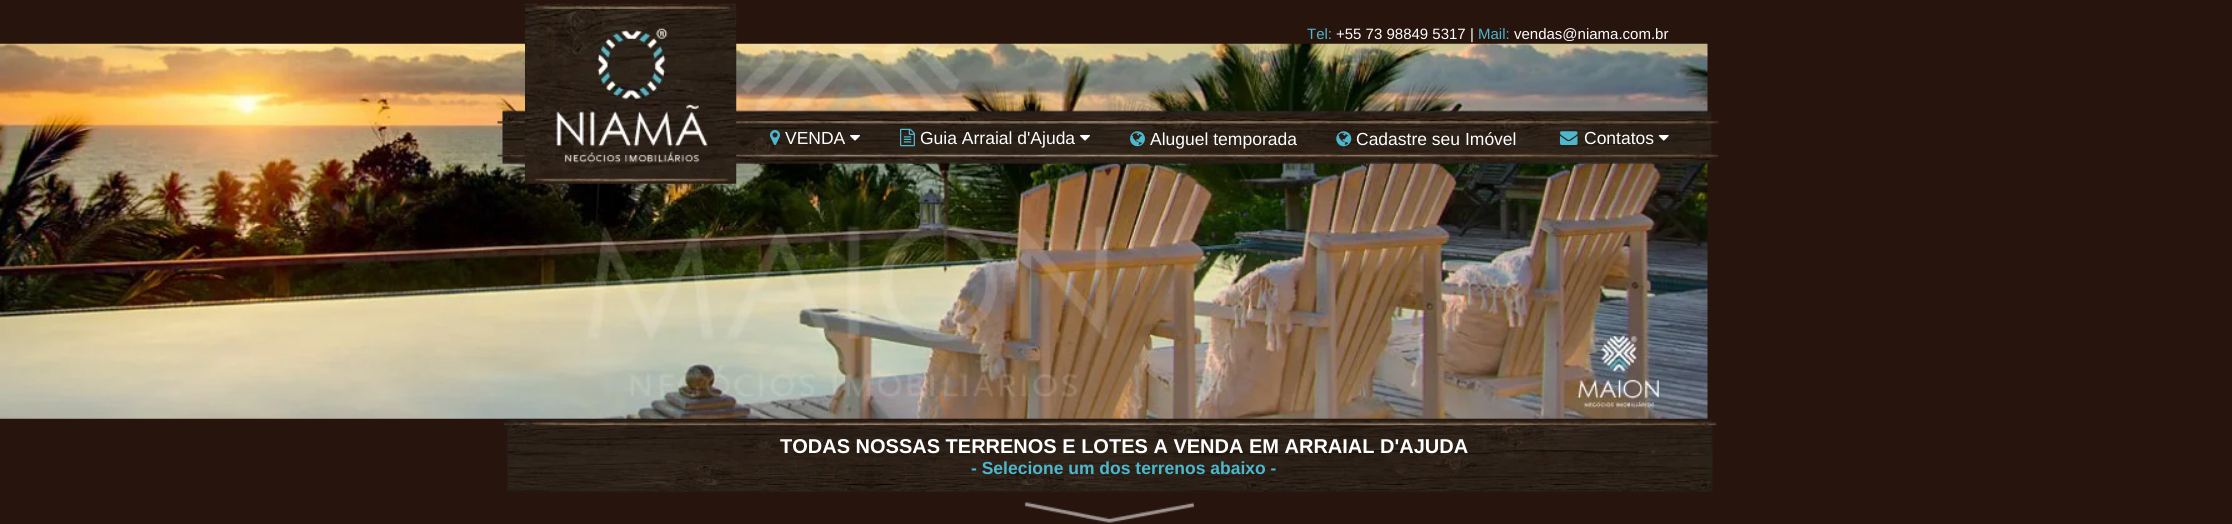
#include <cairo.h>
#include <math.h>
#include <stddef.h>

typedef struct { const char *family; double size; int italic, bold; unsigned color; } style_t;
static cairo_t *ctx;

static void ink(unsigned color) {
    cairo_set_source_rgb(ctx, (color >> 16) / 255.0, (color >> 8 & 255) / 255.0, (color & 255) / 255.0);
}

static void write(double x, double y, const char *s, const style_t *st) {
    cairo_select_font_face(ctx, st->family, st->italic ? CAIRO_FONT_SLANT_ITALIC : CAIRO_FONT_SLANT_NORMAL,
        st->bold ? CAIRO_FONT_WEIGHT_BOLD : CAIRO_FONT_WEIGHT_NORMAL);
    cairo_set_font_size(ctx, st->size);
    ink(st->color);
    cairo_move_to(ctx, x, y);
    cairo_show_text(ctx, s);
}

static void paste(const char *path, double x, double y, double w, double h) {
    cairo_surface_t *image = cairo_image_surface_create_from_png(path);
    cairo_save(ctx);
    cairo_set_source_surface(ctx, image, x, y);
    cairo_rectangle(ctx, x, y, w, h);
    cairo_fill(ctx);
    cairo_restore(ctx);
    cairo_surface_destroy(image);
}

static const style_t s1 = {"Liberation Sans", 15, 0, 0, 0x4cb7cd};
static const style_t s2 = {"Liberation Sans", 15, 0, 0, 0xffffff};
static const style_t s3 = {"Liberation Sans", 17.5, 0, 0, 0xffffff};
static const style_t s4 = {"Liberation Sans", 20, 0, 1, 0xffffff};
static const style_t s5 = {"Liberation Sans", 17.5, 0, 1, 0x4cb7cd};

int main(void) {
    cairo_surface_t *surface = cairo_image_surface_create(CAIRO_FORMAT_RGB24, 2232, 524);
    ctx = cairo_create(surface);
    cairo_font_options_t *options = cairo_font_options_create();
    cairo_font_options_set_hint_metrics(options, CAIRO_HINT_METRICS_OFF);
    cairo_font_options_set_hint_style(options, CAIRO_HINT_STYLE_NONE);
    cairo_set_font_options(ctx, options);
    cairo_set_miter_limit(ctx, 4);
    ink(0x27140d);
    cairo_paint(ctx);
    paste("pic11.png", 0, 43, 1708, 376);
    paste("pic2.png", 497, 110, 1222, 54);
    paste("pic1.png", 525, 3, 212, 181);
    write(1307, 39, "Tel:", &s1);
    write(1336, 39, "+55 73 98849 5317 |", &s2);
    write(1478, 39, "Mail:", &s1);
    write(1514, 39, "vendas@niama.com.br", &s2);
    paste("pic3.png", 770, 130, 10, 15);
    write(785, 144, "VENDA", &s3);
    paste("pic4.png", 850, 135, 10, 6);
    paste("pic5.png", 900, 128, 15, 19);
    write(920, 144, "Guia Arraial d'Ajuda", &s3);
    paste("pic6.png", 1080, 135, 10, 6);
    paste("pic7.png", 1130, 131, 15, 16);
    write(1150, 145, "Aluguel temporada", &s3);
    paste("pic8.png", 1336, 131, 16, 16);
    write(1356, 145, "Cadastre seu Imóvel", &s3);
    paste("pic9.png", 1560, 131, 18, 14);
    write(1584, 144, "Contatos", &s3);
    paste("pic10.png", 1658, 135, 11, 6);
    paste("pic12.png", 503, 418, 1214, 105);
    write(780, 453, "TODAS NOSSAS TERRENOS E LOTES A VENDA EM ARRAIAL D'AJUDA", &s4);
    write(971, 474, "- Selecione um dos terrenos abaixo -", &s5);
    cairo_surface_write_to_png(surface, "screenshot.png");
    cairo_font_options_destroy(options);
    cairo_destroy(ctx);
    cairo_surface_destroy(surface);
    return 0;
}
